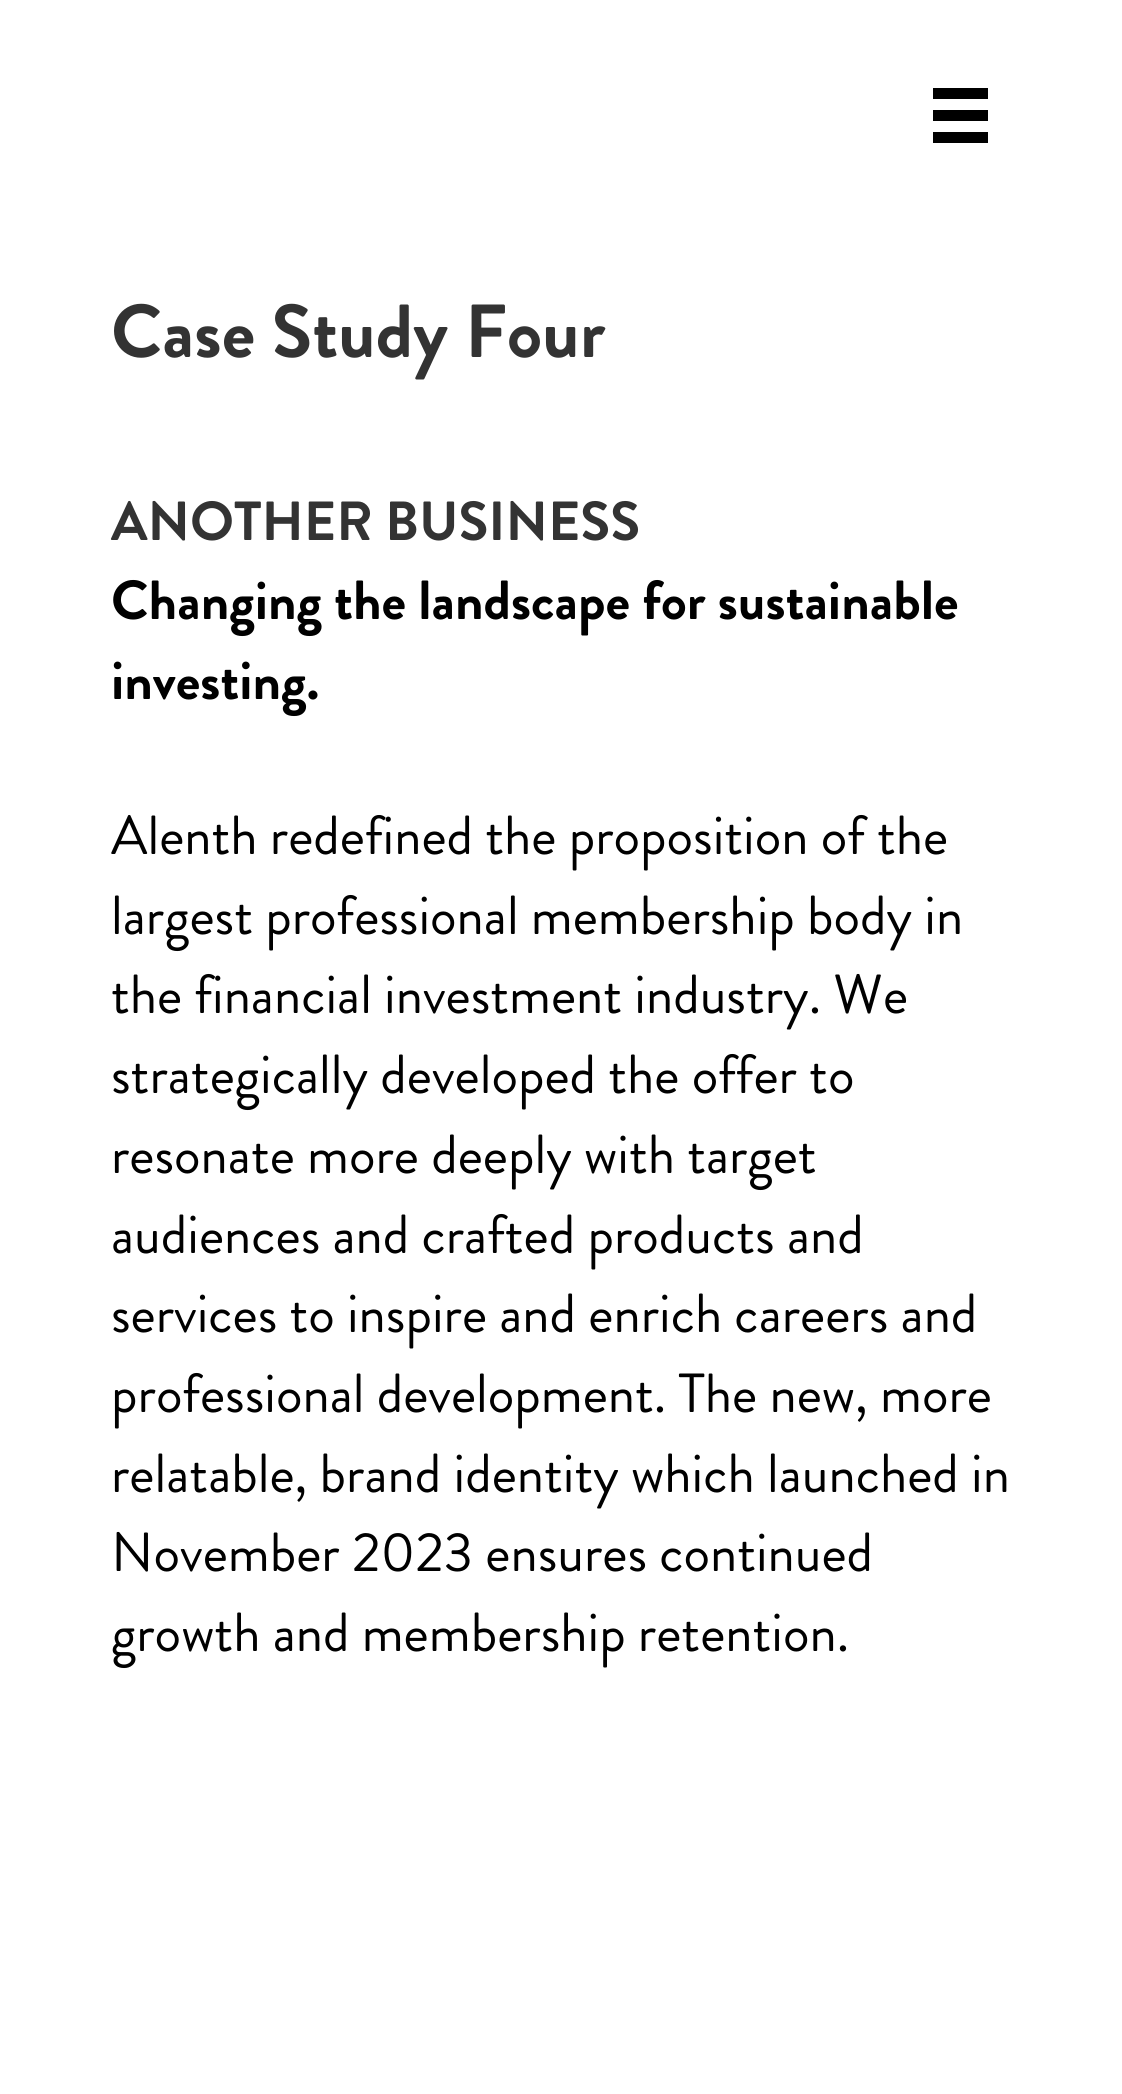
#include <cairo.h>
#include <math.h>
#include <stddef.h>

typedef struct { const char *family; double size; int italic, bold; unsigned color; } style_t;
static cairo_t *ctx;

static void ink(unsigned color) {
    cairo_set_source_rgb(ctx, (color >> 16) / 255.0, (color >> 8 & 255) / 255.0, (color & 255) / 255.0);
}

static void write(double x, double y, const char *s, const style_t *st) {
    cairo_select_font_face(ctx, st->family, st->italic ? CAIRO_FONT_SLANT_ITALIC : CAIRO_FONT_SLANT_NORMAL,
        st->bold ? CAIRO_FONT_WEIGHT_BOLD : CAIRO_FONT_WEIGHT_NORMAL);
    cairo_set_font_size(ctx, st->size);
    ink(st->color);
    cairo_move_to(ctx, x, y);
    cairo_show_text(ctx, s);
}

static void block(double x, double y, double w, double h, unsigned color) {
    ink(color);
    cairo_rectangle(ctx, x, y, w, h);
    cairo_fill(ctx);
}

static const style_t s1 = {"Brandon Grotesque", 75, 0, 1, 0x333333};
static const style_t s2 = {"Brandon Grotesque", 55, 0, 1, 0x333333};
static const style_t s3 = {"Brandon Grotesque", 55, 0, 1, 0x000000};
static const style_t s4 = {"Brandon Grotesque", 55, 0, 0, 0x000000};

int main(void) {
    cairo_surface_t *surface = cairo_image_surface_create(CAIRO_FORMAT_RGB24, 1122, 2094);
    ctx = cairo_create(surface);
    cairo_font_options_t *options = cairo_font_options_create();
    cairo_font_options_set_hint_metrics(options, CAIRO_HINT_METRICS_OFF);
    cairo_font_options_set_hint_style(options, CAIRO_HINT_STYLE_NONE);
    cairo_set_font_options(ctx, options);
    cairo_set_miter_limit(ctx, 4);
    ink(0xffffff);
    cairo_paint(ctx);
    block(933, 88, 55, 11, 0x000000);
    block(933, 110, 55, 11, 0x000000);
    block(933, 132, 55, 11, 0x000000);
    write(111, 357, "Case Study Four", &s1);
    write(111, 540, "ANOTHER BUSINESS", &s2);
    write(111, 619, "Changing the landscape for sustainable", &s3);
    write(111, 699, "investing.", &s3);
    write(111, 854, "Alenth redefined the proposition of the", &s4);
    write(111, 934, "largest professional membership body in", &s4);
    write(111, 1013, "the financial investment industry. We", &s4);
    write(111, 1093, "strategically developed the offer to", &s4);
    write(111, 1173, "resonate more deeply with target", &s4);
    write(111, 1253, "audiences and crafted products and", &s4);
    write(111, 1332, "services to inspire and enrich careers and", &s4);
    write(111, 1412, "professional development. The new, more", &s4);
    write(111, 1492, "relatable, brand identity which launched in", &s4);
    write(111, 1571, "November 2023 ensures continued", &s4);
    write(111, 1651, "growth and membership retention.", &s4);
    cairo_surface_write_to_png(surface, "screenshot.png");
    cairo_font_options_destroy(options);
    cairo_destroy(ctx);
    cairo_surface_destroy(surface);
    return 0;
}
